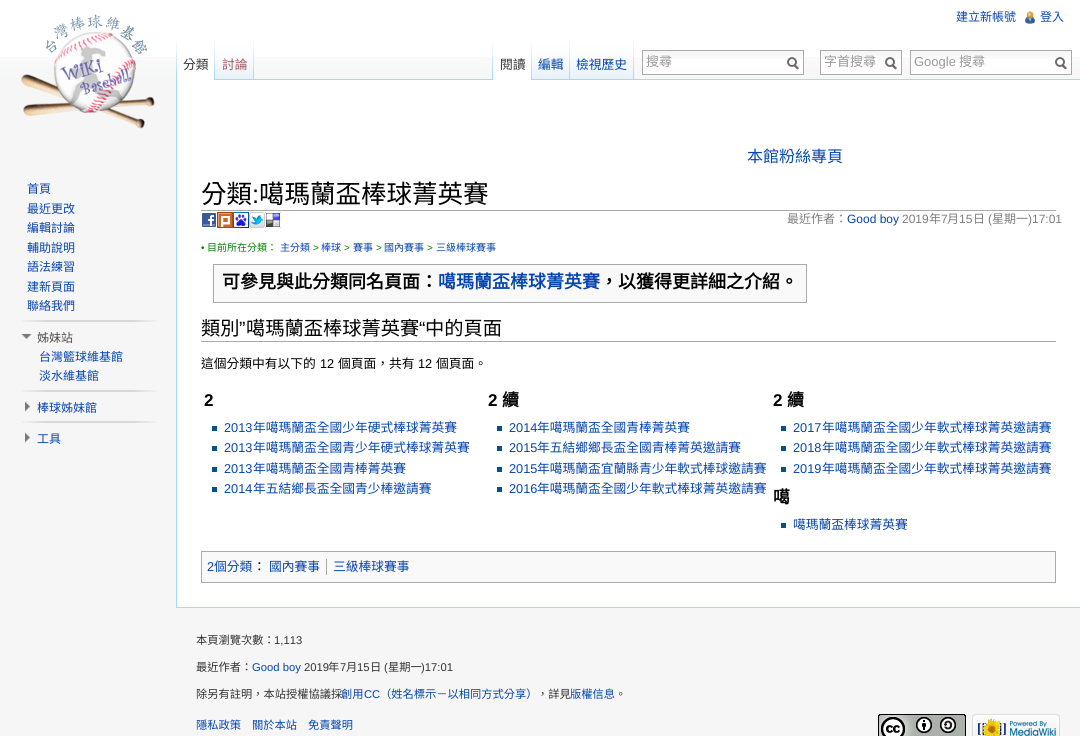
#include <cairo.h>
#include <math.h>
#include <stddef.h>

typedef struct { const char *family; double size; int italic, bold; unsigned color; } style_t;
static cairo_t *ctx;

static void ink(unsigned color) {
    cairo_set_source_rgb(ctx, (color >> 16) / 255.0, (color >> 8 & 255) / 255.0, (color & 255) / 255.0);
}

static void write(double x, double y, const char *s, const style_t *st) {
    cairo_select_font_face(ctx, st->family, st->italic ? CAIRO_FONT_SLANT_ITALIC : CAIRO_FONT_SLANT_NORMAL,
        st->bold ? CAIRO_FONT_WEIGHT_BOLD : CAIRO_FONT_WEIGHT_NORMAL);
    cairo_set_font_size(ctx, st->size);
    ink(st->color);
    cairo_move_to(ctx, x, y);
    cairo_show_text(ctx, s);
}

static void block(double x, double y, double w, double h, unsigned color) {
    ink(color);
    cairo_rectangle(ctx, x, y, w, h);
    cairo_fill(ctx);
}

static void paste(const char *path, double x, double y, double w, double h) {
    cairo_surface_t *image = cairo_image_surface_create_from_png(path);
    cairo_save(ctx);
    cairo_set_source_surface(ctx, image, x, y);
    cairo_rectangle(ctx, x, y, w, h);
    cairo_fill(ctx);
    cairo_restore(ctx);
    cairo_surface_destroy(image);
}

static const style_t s1 = {"Noto Sans CJK TC", 12, 0, 0, 0x0645ad};
static const style_t s2 = {"Noto Sans CJK TC", 12.75, 0, 0, 0x333333};
static const style_t s3 = {"Noto Sans CJK TC", 12.75, 0, 0, 0xa55858};
static const style_t s4 = {"Noto Sans CJK TC", 12.75, 0, 0, 0x0645ad};
static const style_t s5 = {"Noto Sans CJK TC", 13, 0, 0, 0x999999};
static const style_t s6 = {"Liberation Sans", 13, 0, 0, 0x999999};
static const style_t s7 = {"Noto Sans CJK TC", 12, 0, 0, 0x4d4d4d};
static const style_t s8 = {"Noto Sans CJK TC", 16, 0, 0, 0x0645ad};
static const style_t s9 = {"Noto Sans CJK TC", 25.5, 0, 0, 0x000000};
static const style_t s10 = {"Liberation Sans", 25.5, 0, 0, 0x000000};
static const style_t s11 = {"Noto Sans CJK TC", 12, 0, 0, 0x7d7d7d};
static const style_t s12 = {"Liberation Sans", 12, 0, 0, 0x0645ad};
static const style_t s13 = {"Liberation Sans", 12, 0, 0, 0x7d7d7d};
static const style_t s14 = {"Liberation Sans", 10, 0, 0, 0x008000};
static const style_t s15 = {"Noto Sans CJK TC", 10, 0, 0, 0x008000};
static const style_t s16 = {"Noto Sans CJK TC", 10, 0, 0, 0x0645ad};
static const style_t s17 = {"Noto Sans CJK TC", 18, 0, 1, 0x000000};
static const style_t s18 = {"Noto Sans CJK TC", 18, 0, 1, 0x0645ad};
static const style_t s19 = {"Noto Sans CJK TC", 19.25, 0, 0, 0x000000};
static const style_t s20 = {"Liberation Sans", 19.25, 0, 0, 0x000000};
static const style_t s21 = {"Noto Sans CJK TC", 12.75, 0, 0, 0x000000};
static const style_t s22 = {"Liberation Sans", 12.75, 0, 0, 0x000000};
static const style_t s23 = {"Liberation Sans", 17, 0, 1, 0x000000};
static const style_t s24 = {"Liberation Sans", 12.75, 0, 0, 0x0645ad};
static const style_t s25 = {"Noto Sans CJK TC", 17, 0, 1, 0x000000};
static const style_t s26 = {"Noto Sans CJK TC", 11.25, 0, 0, 0x333333};
static const style_t s27 = {"Liberation Sans", 11.25, 0, 0, 0x333333};
static const style_t s28 = {"Liberation Sans", 11.25, 0, 0, 0x0645ad};
static const style_t s29 = {"Noto Sans CJK TC", 11.25, 0, 0, 0x0645ad};

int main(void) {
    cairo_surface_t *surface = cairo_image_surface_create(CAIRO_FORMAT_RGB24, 1080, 736);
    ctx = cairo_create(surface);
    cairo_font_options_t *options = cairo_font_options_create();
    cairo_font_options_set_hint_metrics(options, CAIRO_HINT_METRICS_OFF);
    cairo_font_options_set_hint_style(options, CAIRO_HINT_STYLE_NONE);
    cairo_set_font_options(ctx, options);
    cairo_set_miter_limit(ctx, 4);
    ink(0xf6f6f6);
    cairo_paint(ctx);
    block(0, 0, 1080, 57, 0xffffff);
    paste("pic1.png", 0, 57, 1080, 23);
    write(956, 21, "建立新帳號", &s1);
    paste("pic2.png", 1025, 11, 10, 13);
    write(1040, 21, "登入", &s1);
    paste("pic3.png", 176, 40, 1, 39);
    block(177, 57, 37, 23, 0xffffff);
    paste("pic4.png", 214, 40, 1, 40);
    write(183, 69, "分類", &s2);
    paste("pic5.png", 215, 40, 39, 40);
    paste("pic6.png", 253, 40, 1, 39);
    write(222, 69, "討論", &s3);
    paste("pic3.png", 492, 40, 1, 39);
    block(254, 79, 826, 1, 0xa7d7f9);
    block(493, 57, 38, 23, 0xffffff);
    paste("pic4.png", 531, 40, 1, 40);
    write(500, 69, "閱讀", &s2);
    paste("pic7.png", 532, 40, 38, 40);
    paste("pic6.png", 569, 40, 1, 39);
    write(538, 69, "編輯", &s4);
    paste("pic8.png", 570, 40, 64, 40);
    paste("pic6.png", 633, 40, 1, 39);
    write(576, 69, "檢視歷史", &s4);
    block(643, 59, 160, 15, 0xffffff);
    paste("pic9.png", 643, 51, 160, 8);
    cairo_rectangle(ctx, 642.5, 50.5, 161, 24);
    ink(0xaaaaaa);
    cairo_set_line_width(ctx, 1);
    cairo_stroke(ctx);
    write(646, 66, "搜尋", &s5);
    paste("pic10.png", 787, 57, 12, 13);
    block(821, 59, 80, 15, 0xffffff);
    paste("pic11.png", 821, 51, 80, 8);
    cairo_rectangle(ctx, 820.5, 50.5, 81, 24);
    ink(0xaaaaaa);
    cairo_stroke(ctx);
    write(824, 66, "字首搜尋", &s5);
    paste("pic10.png", 885, 57, 12, 13);
    block(911, 59, 160, 15, 0xffffff);
    paste("pic9.png", 911, 51, 160, 8);
    cairo_rectangle(ctx, 910.5, 50.5, 161, 24);
    ink(0xaaaaaa);
    cairo_stroke(ctx);
    write(914, 66, "Google", &s6);
    write(959, 66, "搜尋", &s5);
    paste("pic10.png", 1055, 57, 12, 13);
    paste("pic12.png", 21, 14, 134, 115);
    write(27, 193, "首頁", &s1);
    write(27, 213, "最近更改", &s1);
    write(27, 232, "編輯討論", &s1);
    write(27, 252, "輔助說明", &s1);
    write(27, 271, "語法練習", &s1);
    write(27, 291, "建新頁面", &s1);
    write(27, 310, "聯絡我們", &s1);
    paste("pic13.png", 22, 320, 135, 2);
    paste("pic14.png", 21, 334, 11, 5);
    write(37, 342, "姊妹站", &s7);
    write(39, 361, "台灣籃球維基館", &s1);
    write(39, 380, "淡水維基館", &s1);
    paste("pic13.png", 22, 390, 135, 2);
    paste("pic15.png", 25, 401, 5, 11);
    write(37, 412, "棒球姊妹館", &s1);
    paste("pic13.png", 22, 421, 135, 2);
    paste("pic15.png", 25, 432, 5, 11);
    write(37, 443, "工具", &s1);
    block(177, 80, 903, 527, 0xffffff);
    block(176, 607, 904, 1, 0xa7d7f9);
    block(176, 79, 1, 529, 0xa7d7f9);
    write(747, 162, "本館粉絲專頁", &s8);
    block(201, 210, 855, 1, 0xaaaaaa);
    write(201, 203, "分類", &s9);
    write(252, 203, ":", &s10);
    write(259, 203, "噶瑪蘭盃棒球菁英賽", &s9);
    paste("pic16.png", 202, 213, 14, 14);
    paste("pic17.png", 217, 212, 16, 16);
    paste("pic18.png", 233, 212, 16, 16);
    paste("pic19.png", 249, 212, 16, 16);
    paste("pic20.png", 265, 212, 16, 16);
    write(787, 223, "最近作者：", &s11);
    write(847, 223, "Good boy", &s12);
    write(902, 223, "2019", &s13);
    write(929, 223, "年", &s11);
    write(941, 223, "7", &s13);
    write(947, 223, "月", &s11);
    write(959, 223, "15", &s13);
    write(973, 223, "日", &s11);
    write(988, 223, "(", &s13);
    write(992, 223, "星期一", &s11);
    write(1028, 223, ")17:01", &s13);
    write(201, 251, "•", &s14);
    write(207, 251, "目前所在分類：", &s15);
    write(280, 251, "主分類", &s16);
    write(313, 251, ">", &s14);
    write(321, 251, "棒球", &s16);
    write(344, 251, ">", &s14);
    write(353, 251, "賽事", &s16);
    write(376, 251, ">", &s14);
    write(384, 251, "國內賽事", &s16);
    write(427, 251, ">", &s14);
    write(436, 251, "三級棒球賽事", &s16);
    ink(0xf9f9f9);
    cairo_rectangle(ctx, 213.5, 264.5, 593, 38);
    cairo_fill_preserve(ctx);
    ink(0xaaaaaa);
    cairo_stroke(ctx);
    write(222, 288, "可參見與此分類同名頁面：", &s17);
    write(438, 288, "噶瑪蘭盃棒球菁英賽", &s18);
    write(600, 288, "，以獲得更詳細之介紹。", &s17);
    block(201, 341, 855, 1, 0xaaaaaa);
    write(201, 335, "類別", &s19);
    write(239, 335, "”", &s20);
    write(246, 335, "噶瑪蘭盃棒球菁英賽", &s19);
    write(419, 335, "“", &s20);
    write(425, 335, "中的頁面", &s19);
    write(201, 368, "這個分類中有以下的", &s21);
    write(320, 368, "12", &s22);
    write(338, 368, "個頁面，共有", &s21);
    write(418, 368, "12", &s22);
    write(436, 368, "個頁面。", &s21);
    write(204, 406, "2", &s23);
    block(212, 426, 5, 5, 0x00528c);
    write(224, 432, "2013", &s24);
    write(253, 432, "年噶瑪蘭盃全國少年硬式棒球菁英賽", &s4);
    block(212, 446, 5, 5, 0x00528c);
    write(224, 452, "2013", &s24);
    write(253, 452, "年噶瑪蘭盃全國青少年硬式棒球菁英賽", &s4);
    block(212, 467, 5, 5, 0x00528c);
    write(224, 473, "2013", &s24);
    write(253, 473, "年噶瑪蘭盃全國青棒菁英賽", &s4);
    block(212, 487, 5, 5, 0x00528c);
    write(224, 493, "2014", &s24);
    write(253, 493, "年五結鄉長盃全國青少棒邀請賽", &s4);
    write(488, 406, "2", &s23);
    write(502, 406, "續", &s25);
    block(497, 426, 5, 5, 0x00528c);
    write(509, 432, "2014", &s24);
    write(537, 432, "年噶瑪蘭盃全國青棒菁英賽", &s4);
    block(497, 446, 5, 5, 0x00528c);
    write(509, 452, "2015", &s24);
    write(537, 452, "年五結鄉鄉長盃全國青棒菁英邀請賽", &s4);
    block(497, 467, 5, 5, 0x00528c);
    write(509, 473, "2015", &s24);
    write(537, 473, "年噶瑪蘭盃宜蘭縣青少年軟式棒球邀請賽", &s4);
    block(497, 487, 5, 5, 0x00528c);
    write(509, 493, "2016", &s24);
    write(537, 493, "年噶瑪蘭盃全國少年軟式棒球菁英邀請賽", &s4);
    write(773, 406, "2", &s23);
    write(787, 406, "續", &s25);
    block(781, 426, 5, 5, 0x00528c);
    write(793, 432, "2017", &s24);
    write(822, 432, "年噶瑪蘭盃全國少年軟式棒球菁英邀請賽", &s4);
    block(781, 446, 5, 5, 0x00528c);
    write(793, 452, "2018", &s24);
    write(822, 452, "年噶瑪蘭盃全國少年軟式棒球菁英邀請賽", &s4);
    block(781, 467, 5, 5, 0x00528c);
    write(793, 473, "2019", &s24);
    write(822, 473, "年噶瑪蘭盃全國少年軟式棒球菁英邀請賽", &s4);
    write(773, 503, "噶", &s25);
    block(781, 523, 5, 5, 0x00528c);
    write(793, 529, "噶瑪蘭盃棒球菁英賽", &s4);
    ink(0xf9f9f9);
    cairo_rectangle(ctx, 201.5, 551.5, 854, 31);
    cairo_fill_preserve(ctx);
    ink(0xaaaaaa);
    cairo_stroke(ctx);
    write(207, 571, "2", &s24);
    write(214, 571, "個分類", &s4);
    write(253, 571, "：", &s21);
    write(269, 571, "國內賽事", &s4);
    block(326, 559, 1, 16, 0xaaaaaa);
    write(333, 571, "三級棒球賽事", &s4);
    write(196, 644, "本頁瀏覽次數：", &s26);
    write(274, 644, "1,113", &s27);
    write(196, 671, "最近作者：", &s26);
    write(252, 671, "Good boy", &s28);
    write(304, 671, "2019", &s27);
    write(328, 671, "年", &s26);
    write(340, 671, "7", &s27);
    write(346, 671, "月", &s26);
    write(357, 671, "15", &s27);
    write(370, 671, "日", &s26);
    write(384, 671, "(", &s27);
    write(388, 671, "星期一", &s26);
    write(421, 671, ")17:01", &s27);
    write(196, 698, "除另有註明，本站授權協議採", &s26);
    write(341, 698, "創用", &s29);
    write(364, 698, "CC", &s28);
    write(380, 698, "（姓名標示－以相同方式分享）", &s29);
    write(537, 698, "，詳見", &s26);
    write(570, 698, "版權信息", &s29);
    write(615, 698, "。", &s26);
    write(196, 729, "隱私政策", &s29);
    write(252, 729, "關於本站", &s29);
    write(308, 729, "免責聲明", &s29);
    paste("pic21.png", 878, 714, 88, 22);
    paste("pic22.png", 972, 714, 88, 22);
    cairo_surface_write_to_png(surface, "screenshot.png");
    cairo_font_options_destroy(options);
    cairo_destroy(ctx);
    cairo_surface_destroy(surface);
    return 0;
}
